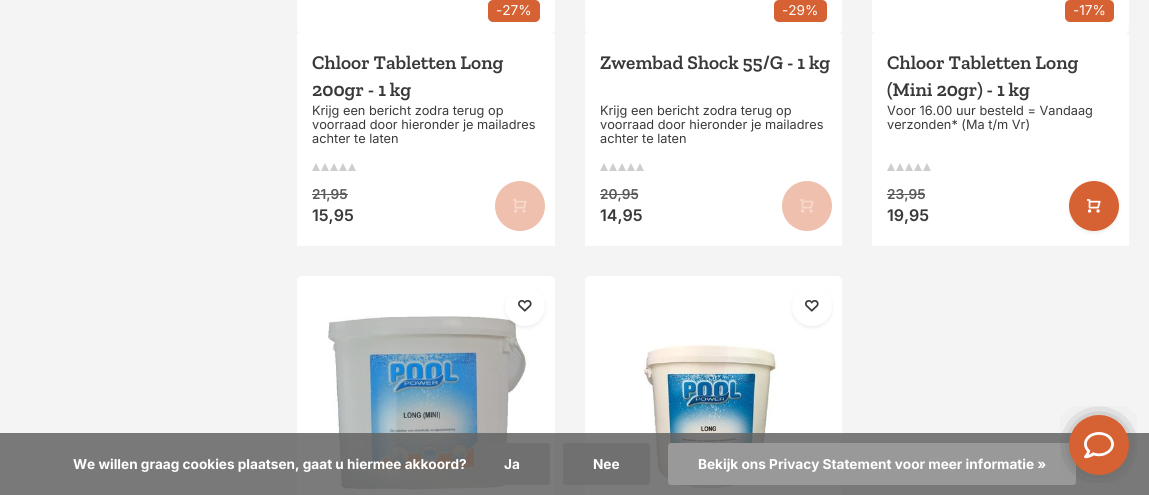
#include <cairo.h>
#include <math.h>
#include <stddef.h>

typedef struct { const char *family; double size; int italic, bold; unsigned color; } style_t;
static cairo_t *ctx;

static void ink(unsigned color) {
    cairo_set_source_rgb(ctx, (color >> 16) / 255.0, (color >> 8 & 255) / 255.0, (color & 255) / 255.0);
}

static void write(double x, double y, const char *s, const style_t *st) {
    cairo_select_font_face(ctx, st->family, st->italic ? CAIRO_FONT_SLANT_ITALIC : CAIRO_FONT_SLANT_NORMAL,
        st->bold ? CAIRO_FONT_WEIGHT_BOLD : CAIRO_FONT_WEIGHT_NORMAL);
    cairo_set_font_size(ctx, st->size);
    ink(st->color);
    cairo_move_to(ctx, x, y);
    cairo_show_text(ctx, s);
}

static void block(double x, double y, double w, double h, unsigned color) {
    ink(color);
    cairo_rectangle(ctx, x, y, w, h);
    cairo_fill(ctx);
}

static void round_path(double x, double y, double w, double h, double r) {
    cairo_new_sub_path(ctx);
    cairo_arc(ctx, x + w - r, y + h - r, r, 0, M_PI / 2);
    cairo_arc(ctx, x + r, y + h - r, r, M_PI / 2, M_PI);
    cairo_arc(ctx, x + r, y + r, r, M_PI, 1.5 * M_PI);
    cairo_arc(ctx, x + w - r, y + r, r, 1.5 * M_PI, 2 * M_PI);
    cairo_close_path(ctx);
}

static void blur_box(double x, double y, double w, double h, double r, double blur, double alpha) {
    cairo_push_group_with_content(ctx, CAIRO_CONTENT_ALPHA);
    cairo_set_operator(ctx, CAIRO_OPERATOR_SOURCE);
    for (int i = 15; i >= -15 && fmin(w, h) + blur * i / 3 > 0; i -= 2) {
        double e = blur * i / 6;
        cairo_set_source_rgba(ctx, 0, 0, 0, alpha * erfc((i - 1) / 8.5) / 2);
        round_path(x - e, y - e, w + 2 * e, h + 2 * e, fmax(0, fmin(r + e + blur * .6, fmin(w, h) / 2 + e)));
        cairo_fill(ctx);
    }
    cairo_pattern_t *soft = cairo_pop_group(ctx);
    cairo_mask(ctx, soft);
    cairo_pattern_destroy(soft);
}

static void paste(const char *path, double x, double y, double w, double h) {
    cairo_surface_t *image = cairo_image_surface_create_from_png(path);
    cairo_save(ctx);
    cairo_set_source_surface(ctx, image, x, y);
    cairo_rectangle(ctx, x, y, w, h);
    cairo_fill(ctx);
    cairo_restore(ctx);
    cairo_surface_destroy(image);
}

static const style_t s1 = {"Inter", 13.6, 0, 0, 0xffffff};
static const style_t s2 = {"Zilla Slab SemiBold", 19.4, 0, 0, 0x393939};
static const style_t s3 = {"Inter", 12.75, 0, 0, 0x393939};
static const style_t s4 = {"Inter SemiBold", 13.6, 0, 0, 0x595959};
static const style_t s5 = {"Inter SemiBold", 16, 0, 0, 0x393939};
static const style_t s6 = {"Inter", 13.6, 0, 1, 0xffffff};

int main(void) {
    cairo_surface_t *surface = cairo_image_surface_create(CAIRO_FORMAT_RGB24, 1149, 495);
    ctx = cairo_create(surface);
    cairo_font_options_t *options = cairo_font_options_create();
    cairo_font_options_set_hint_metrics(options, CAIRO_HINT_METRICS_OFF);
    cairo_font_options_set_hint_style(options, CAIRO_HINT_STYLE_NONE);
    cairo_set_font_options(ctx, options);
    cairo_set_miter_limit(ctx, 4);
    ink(0xf4f4f4);
    cairo_paint(ctx);
    ink(0xffffff);
    round_path(297, -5, 258, 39, 5);
    cairo_fill(ctx);
    ink(0xd66133);
    round_path(488, 0, 52, 22, 5);
    cairo_fill(ctx);
    write(496, 15, "-27%", &s1);
    block(297, 34, 258, 212, 0xffffff);
    write(312, 69, "Chloor Tabletten Long", &s2);
    write(312, 96, "200gr - 1 kg", &s2);
    write(312, 115, "Krijg een bericht zodra terug op", &s3);
    write(312, 129, "voorraad door hieronder je mailadres", &s3);
    write(312, 143, "achter te laten", &s3);
    ink(0xcecece);
    cairo_new_path(ctx);
    cairo_move_to(ctx, 320, 171);
    cairo_line_to(ctx, 312, 171);
    cairo_line_to(ctx, 316, 163);
    cairo_close_path(ctx);
    cairo_move_to(ctx, 329, 171);
    cairo_line_to(ctx, 321, 171);
    cairo_line_to(ctx, 325, 163);
    cairo_close_path(ctx);
    cairo_move_to(ctx, 338, 171);
    cairo_line_to(ctx, 330, 171);
    cairo_line_to(ctx, 334, 163);
    cairo_close_path(ctx);
    cairo_move_to(ctx, 347, 171);
    cairo_line_to(ctx, 339, 171);
    cairo_line_to(ctx, 343, 163);
    cairo_close_path(ctx);
    cairo_move_to(ctx, 356, 171);
    cairo_line_to(ctx, 348, 171);
    cairo_line_to(ctx, 352, 163);
    cairo_close_path(ctx);
    cairo_fill(ctx);
    write(312, 199, "21,95", &s4);
    block(312, 194, 36, 1, 0x595959);
    write(312, 221, "15,95", &s5);
    ink(0xefc0ad);
    cairo_new_path(ctx);
    cairo_arc(ctx, 520, 206, 25, 0, 2 * M_PI);
    cairo_fill(ctx);
    paste("pic1.png", 513, 199, 14, 14);
    ink(0xffffff);
    round_path(585, -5, 257, 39, 5);
    cairo_fill(ctx);
    ink(0xd66133);
    round_path(774, 0, 53, 22, 5);
    cairo_fill(ctx);
    write(782, 15, "-29%", &s1);
    block(585, 34, 257, 212, 0xffffff);
    write(600, 69, "Zwembad Shock 55/G - 1 kg", &s2);
    write(600, 115, "Krijg een bericht zodra terug op", &s3);
    write(600, 129, "voorraad door hieronder je mailadres", &s3);
    write(600, 143, "achter te laten", &s3);
    ink(0xcecece);
    cairo_new_path(ctx);
    cairo_move_to(ctx, 608, 171);
    cairo_line_to(ctx, 600, 171);
    cairo_line_to(ctx, 604, 163);
    cairo_close_path(ctx);
    cairo_move_to(ctx, 617, 171);
    cairo_line_to(ctx, 609, 171);
    cairo_line_to(ctx, 613, 163);
    cairo_close_path(ctx);
    cairo_move_to(ctx, 626, 171);
    cairo_line_to(ctx, 618, 171);
    cairo_line_to(ctx, 622, 163);
    cairo_close_path(ctx);
    cairo_move_to(ctx, 635, 171);
    cairo_line_to(ctx, 627, 171);
    cairo_line_to(ctx, 631, 163);
    cairo_close_path(ctx);
    cairo_move_to(ctx, 644, 171);
    cairo_line_to(ctx, 636, 171);
    cairo_line_to(ctx, 640, 163);
    cairo_close_path(ctx);
    cairo_fill(ctx);
    write(600, 199, "20,95", &s4);
    block(600, 194, 38, 1, 0x595959);
    write(600, 221, "14,95", &s5);
    ink(0xefc0ad);
    cairo_new_path(ctx);
    cairo_arc(ctx, 807, 206, 25, 0, 2 * M_PI);
    cairo_fill(ctx);
    paste("pic1.png", 800, 199, 14, 14);
    ink(0xffffff);
    round_path(872, -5, 257, 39, 5);
    cairo_fill(ctx);
    ink(0xd66133);
    round_path(1065, 0, 49, 22, 5);
    cairo_fill(ctx);
    write(1073, 15, "-17%", &s1);
    block(872, 34, 257, 212, 0xffffff);
    write(887, 69, "Chloor Tabletten Long", &s2);
    write(887, 96, "(Mini 20gr) - 1 kg", &s2);
    write(887, 115, "Voor 16.00 uur besteld = Vandaag", &s3);
    write(887, 129, "verzonden* (Ma t/m Vr)", &s3);
    ink(0xcecece);
    cairo_new_path(ctx);
    cairo_move_to(ctx, 895, 171);
    cairo_line_to(ctx, 887, 171);
    cairo_line_to(ctx, 891, 163);
    cairo_close_path(ctx);
    cairo_move_to(ctx, 904, 171);
    cairo_line_to(ctx, 896, 171);
    cairo_line_to(ctx, 900, 163);
    cairo_close_path(ctx);
    cairo_move_to(ctx, 913, 171);
    cairo_line_to(ctx, 905, 171);
    cairo_line_to(ctx, 909, 163);
    cairo_close_path(ctx);
    cairo_move_to(ctx, 922, 171);
    cairo_line_to(ctx, 914, 171);
    cairo_line_to(ctx, 918, 163);
    cairo_close_path(ctx);
    cairo_move_to(ctx, 931, 171);
    cairo_line_to(ctx, 923, 171);
    cairo_line_to(ctx, 927, 163);
    cairo_close_path(ctx);
    cairo_fill(ctx);
    write(887, 199, "23,95", &s4);
    block(887, 194, 38, 1, 0x595959);
    write(887, 221, "19,95", &s5);
    ink(0x000000);
    blur_box(1069, 183, 50, 50, 25, 2, 0.07);
    ink(0xd66133);
    cairo_arc(ctx, 1094, 206, 25, 0, 2 * M_PI);
    cairo_fill(ctx);
    paste("pic2.png", 1087, 199, 14, 14);
    ink(0xffffff);
    round_path(297, 276, 258, 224, 5);
    cairo_fill(ctx);
    paste("pic3.png", 328, 316, 201, 175);
    ink(0x000000);
    blur_box(505, 288, 40, 40, 20, 2, 0.07);
    ink(0xffffff);
    cairo_arc(ctx, 525, 306, 20, 0, 2 * M_PI);
    cairo_fill(ctx);
    paste("pic4.png", 518, 300, 14, 12);
    round_path(585, 276, 257, 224, 5);
    cairo_fill(ctx);
    paste("pic5.png", 643, 344, 136, 147);
    ink(0x000000);
    blur_box(792, 288, 40, 40, 20, 2, 0.07);
    ink(0xffffff);
    cairo_arc(ctx, 812, 306, 20, 0, 2 * M_PI);
    cairo_fill(ctx);
    paste("pic4.png", 805, 300, 14, 12);
    cairo_set_source_rgba(ctx, 0.392, 0.392, 0.392, 0.85);
    cairo_rectangle(ctx, 0, 433, 1149, 62);
    cairo_fill(ctx);
    write(73, 469, "We willen graag cookies plaatsen, gaat u hiermee akkoord?", &s6);
    ink(0x707070);
    round_path(474, 443, 76, 42, 3);
    cairo_fill(ctx);
    write(504, 469, "Ja", &s6);
    ink(0x707070);
    round_path(563, 443, 87, 42, 3);
    cairo_fill(ctx);
    write(593, 469, "Nee", &s6);
    ink(0x999999);
    round_path(668, 443, 408, 42, 3);
    cairo_fill(ctx);
    write(698, 469, "Bekijk ons Privacy Statement voor meer informatie »", &s6);
    paste("pic6.png", 1060, 406, 77, 77);
    cairo_surface_write_to_png(surface, "screenshot.png");
    cairo_font_options_destroy(options);
    cairo_destroy(ctx);
    cairo_surface_destroy(surface);
    return 0;
}
